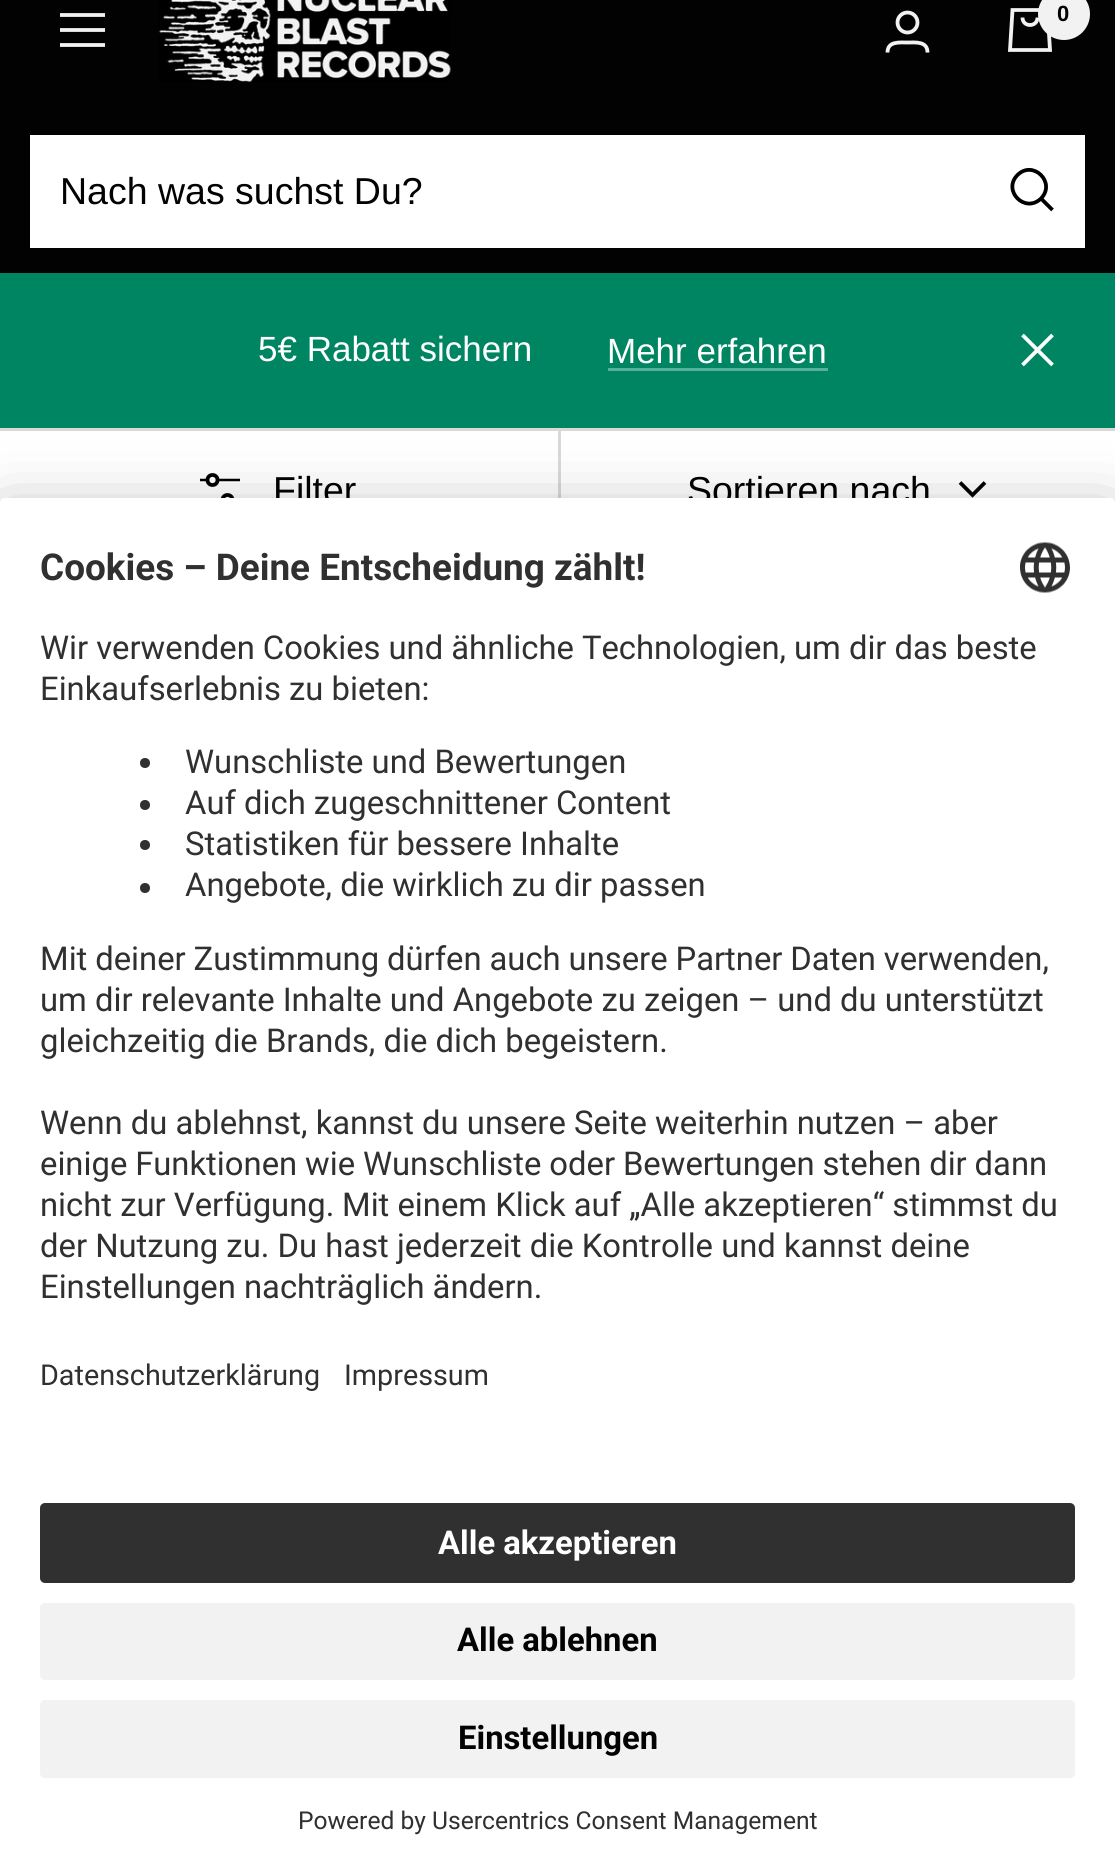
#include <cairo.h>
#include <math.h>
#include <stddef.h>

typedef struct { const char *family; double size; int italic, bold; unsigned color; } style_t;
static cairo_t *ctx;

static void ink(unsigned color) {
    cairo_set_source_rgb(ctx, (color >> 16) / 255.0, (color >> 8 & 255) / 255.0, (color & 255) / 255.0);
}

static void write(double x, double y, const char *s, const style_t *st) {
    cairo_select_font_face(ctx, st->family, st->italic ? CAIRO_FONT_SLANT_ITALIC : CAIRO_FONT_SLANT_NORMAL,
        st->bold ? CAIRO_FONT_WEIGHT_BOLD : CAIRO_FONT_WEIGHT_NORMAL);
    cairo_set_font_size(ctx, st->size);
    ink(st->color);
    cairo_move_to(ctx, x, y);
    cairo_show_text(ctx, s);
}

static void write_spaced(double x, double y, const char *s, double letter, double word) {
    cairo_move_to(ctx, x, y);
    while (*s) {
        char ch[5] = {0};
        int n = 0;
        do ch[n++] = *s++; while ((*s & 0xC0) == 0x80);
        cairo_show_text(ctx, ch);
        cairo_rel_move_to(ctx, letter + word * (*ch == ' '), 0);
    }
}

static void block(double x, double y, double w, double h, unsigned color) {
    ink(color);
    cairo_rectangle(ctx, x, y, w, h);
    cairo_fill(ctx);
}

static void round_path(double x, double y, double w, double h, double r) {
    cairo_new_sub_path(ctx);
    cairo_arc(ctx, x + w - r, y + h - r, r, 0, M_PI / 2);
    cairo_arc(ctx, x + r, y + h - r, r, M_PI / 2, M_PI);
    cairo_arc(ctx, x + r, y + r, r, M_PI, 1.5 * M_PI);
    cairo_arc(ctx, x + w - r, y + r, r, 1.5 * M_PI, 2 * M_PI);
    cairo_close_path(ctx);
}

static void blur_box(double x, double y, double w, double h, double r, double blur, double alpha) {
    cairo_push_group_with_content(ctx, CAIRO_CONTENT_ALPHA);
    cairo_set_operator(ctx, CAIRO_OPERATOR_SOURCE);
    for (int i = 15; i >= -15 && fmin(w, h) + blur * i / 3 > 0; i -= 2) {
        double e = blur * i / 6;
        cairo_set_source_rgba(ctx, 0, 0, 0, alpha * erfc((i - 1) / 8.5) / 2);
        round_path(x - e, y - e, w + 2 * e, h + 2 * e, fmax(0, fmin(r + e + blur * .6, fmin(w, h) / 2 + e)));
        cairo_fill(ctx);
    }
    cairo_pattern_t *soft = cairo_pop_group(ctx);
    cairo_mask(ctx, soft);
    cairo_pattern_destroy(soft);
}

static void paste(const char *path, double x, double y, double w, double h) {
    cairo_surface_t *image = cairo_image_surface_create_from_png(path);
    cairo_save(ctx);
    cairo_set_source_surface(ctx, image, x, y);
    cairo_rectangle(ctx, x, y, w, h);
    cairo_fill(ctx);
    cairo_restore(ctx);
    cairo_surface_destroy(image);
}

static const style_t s1 = {"Liberation Sans", 22, 0, 1, 0x020203};
static const style_t s2 = {"Liberation Sans", 37.5, 0, 0, 0x020203};
static const style_t s3 = {"Liberation Sans", 35, 0, 0, 0xffffff};
static const style_t s4 = {"Roboto", 36.9, 0, 1, 0x303030};
static const style_t s5 = {"Roboto", 32.8, 0, 0, 0x303030};
static const style_t s6 = {"Roboto", 28.75, 0, 0, 0x303030};
static const style_t s7 = {"Roboto", 32.8, 0, 1, 0xffffff};
static const style_t s8 = {"Roboto", 32.8, 0, 1, 0x020203};
static const style_t s9 = {"Roboto", 24.6, 0, 0, 0x303030};

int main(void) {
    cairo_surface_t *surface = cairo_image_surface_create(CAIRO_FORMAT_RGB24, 1115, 1875);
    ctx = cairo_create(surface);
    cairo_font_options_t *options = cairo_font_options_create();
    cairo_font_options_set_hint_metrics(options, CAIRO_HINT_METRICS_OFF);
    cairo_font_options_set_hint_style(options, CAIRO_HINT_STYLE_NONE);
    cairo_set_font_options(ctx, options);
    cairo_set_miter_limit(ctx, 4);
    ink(0xffffff);
    cairo_paint(ctx);
    block(0, 0, 1115, 273, 0x020203);
    cairo_new_path(ctx);
    cairo_move_to(ctx, 60, 15);
    cairo_line_to(ctx, 105, 15);
    cairo_move_to(ctx, 60, 45);
    cairo_line_to(ctx, 105, 45);
    cairo_close_path(ctx);
    cairo_move_to(ctx, 60, 30);
    cairo_line_to(ctx, 105, 30);
    cairo_close_path(ctx);
    ink(0xf2f2f2);
    cairo_set_line_width(ctx, 3.8);
    cairo_stroke(ctx);
    paste("pic1.png", 159, 0, 292, 82);
    cairo_arc(ctx, 907.5, 22.5, 10, 0, 2 * M_PI);
    cairo_stroke(ctx);
    cairo_new_path(ctx);
    cairo_move_to(ctx, 887.5, 52.5);
    cairo_curve_to(ctx, 887.5, 41, 899.5, 42.5, 907.5, 42.5);
    cairo_curve_to(ctx, 915.5, 42.5, 927.5, 41, 927.5, 52.5);
    cairo_stroke(ctx);
    cairo_new_path(ctx);
    cairo_move_to(ctx, 1012.5, 10);
    cairo_line_to(ctx, 1047.5, 10);
    cairo_line_to(ctx, 1050, 50);
    cairo_line_to(ctx, 1010, 50);
    cairo_close_path(ctx);
    cairo_move_to(ctx, 1022.5, 17.5);
    cairo_curve_to(ctx, 1022.5, 27.5, 1037.5, 27.5, 1037.5, 17.5);
    cairo_stroke(ctx);
    cairo_arc(ctx, 1064, 14, 26, 0, 2 * M_PI);
    cairo_fill(ctx);
    write(1057, 21, "0", &s1);
    block(30, 135, 1055, 113, 0xffffff);
    write(60, 204, "Nach was suchst Du?", &s2);
    cairo_new_path(ctx);
    cairo_move_to(ctx, 1041, 198.5);
    cairo_curve_to(ctx, 1056.5, 182.5, 1033, 159.5, 1017.5, 175);
    cairo_curve_to(ctx, 1002, 190.5, 1025, 214, 1041, 198.5);
    cairo_close_path(ctx);
    cairo_move_to(ctx, 1041, 198.5);
    cairo_line_to(ctx, 1052.5, 210);
    ink(0x000000);
    cairo_stroke(ctx);
    block(0, 273, 1115, 155, 0x008563);
    write(258, 361, "5€ Rabatt sichern", &s3);
    write(607, 363, "Mehr erfahren", &s3);
    block(608, 368, 220, 3, 0x59b09a);
    cairo_new_path(ctx);
    cairo_move_to(ctx, 1052.5, 365);
    cairo_line_to(ctx, 1022.5, 335);
    cairo_move_to(ctx, 1052.5, 335);
    cairo_line_to(ctx, 1022.5, 365);
    ink(0xffffff);
    cairo_stroke(ctx);
    block(0, 428, 1115, 3, 0xd9d9d9);
    cairo_new_path(ctx);
    cairo_move_to(ctx, 200, 480);
    cairo_line_to(ctx, 240, 480);
    cairo_move_to(ctx, 200, 500);
    cairo_line_to(ctx, 240, 500);
    ink(0x020203);
    cairo_set_line_width(ctx, 2.5);
    cairo_stroke(ctx);
    ink(0xffffff);
    cairo_arc(ctx, 212.5, 480, 5, 0, 2 * M_PI);
    cairo_fill_preserve(ctx);
    ink(0x020203);
    cairo_set_line_width(ctx, 3.8);
    cairo_stroke(ctx);
    ink(0xffffff);
    cairo_arc(ctx, 227.5, 500, 5, 0, 2 * M_PI);
    cairo_fill_preserve(ctx);
    ink(0x020203);
    cairo_stroke(ctx);
    write(273, 503, "Filter", &s2);
    block(558, 428, 3, 70, 0xd9d9d9);
    write(687, 503, "Sortieren nach", &s2);
    cairo_new_path(ctx);
    cairo_move_to(ctx, 960, 482.5);
    cairo_line_to(ctx, 972.5, 495);
    cairo_line_to(ctx, 985, 482.5);
    cairo_stroke(ctx);
    ink(0x000000);
    blur_box(0, 548, 1115, 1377, 5, 35, 0.3);
    blur_box(0, 510, 1115, 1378, 5, 32.5, 0.22);
    ink(0xffffff);
    cairo_new_path(ctx);
    cairo_move_to(ctx, 5, 498);
    cairo_line_to(ctx, 1110, 498);
    cairo_curve_to(ctx, 1113, 498, 1115, 500, 1115, 503);
    cairo_line_to(ctx, 1115, 1875);
    cairo_line_to(ctx, 0, 1875);
    cairo_line_to(ctx, 0, 503);
    cairo_curve_to(ctx, 0, 500, 2, 498, 5, 498);
    cairo_close_path(ctx);
    cairo_fill(ctx);
    write(40, 580, "Cookies – Deine Entscheidung zählt!", &s4);
    paste("pic2.png", 1020, 542, 50, 51);
    cairo_select_font_face(ctx, "Roboto", CAIRO_FONT_SLANT_NORMAL, CAIRO_FONT_WEIGHT_NORMAL);
    cairo_set_font_size(ctx, 32.8);
    write_spaced(40, 659, "Wir verwenden Cookies und ähnliche Technologien, um dir das beste", 0, -0.1);
    write(40, 700, "Einkaufserlebnis zu bieten:", &s5);
    cairo_new_path(ctx);
    cairo_arc(ctx, 145, 763, 5, 0, 2 * M_PI);
    cairo_fill(ctx);
    write(185, 773, "Wunschliste und Bewertungen", &s5);
    cairo_new_path(ctx);
    cairo_arc(ctx, 145, 805, 5, 0, 2 * M_PI);
    cairo_fill(ctx);
    write(185, 814, "Auf dich zugeschnittener Content", &s5);
    cairo_new_path(ctx);
    cairo_arc(ctx, 145, 845, 5, 0, 2 * M_PI);
    cairo_fill(ctx);
    write(185, 855, "Statistiken für bessere Inhalte", &s5);
    cairo_new_path(ctx);
    cairo_arc(ctx, 145, 888, 5, 0, 2 * M_PI);
    cairo_fill(ctx);
    write(185, 896, "Angebote, die wirklich zu dir passen", &s5);
    write_spaced(40, 970, "Mit deiner Zustimmung dürfen auch unsere Partner Daten verwenden,", 0, -0.25);
    write(40, 1011, "um dir relevante Inhalte und Angebote zu zeigen – und du unterstützt", &s5);
    write(40, 1052, "gleichzeitig die Brands, die dich begeistern.", &s5);
    write(40, 1134, "Wenn du ablehnst, kannst du unsere Seite weiterhin nutzen – aber", &s5);
    write_spaced(40, 1175, "einige Funktionen wie Wunschliste oder Bewertungen stehen dir dann", 0, -0.25);
    write(40, 1216, "nicht zur Verfügung.", &s5);
    write(342, 1216, "Mit einem Klick auf „Alle akzeptieren“ stimmst du", &s5);
    write(40, 1257, "der Nutzung zu. Du hast jederzeit die Kontrolle und kannst deine", &s5);
    write(40, 1298, "Einstellungen nachträglich ändern.", &s5);
    write(40, 1385, "Datenschutzerklärung", &s6);
    write(344, 1385, "Impressum", &s6);
    round_path(40, 1503, 1035, 80, 5);
    cairo_fill(ctx);
    write(438, 1554, "Alle akzeptieren", &s7);
    ink(0xf2f2f2);
    round_path(40, 1603, 1035, 77, 5);
    cairo_fill(ctx);
    write(457, 1651, "Alle ablehnen", &s8);
    ink(0xf2f2f2);
    round_path(40, 1700, 1035, 78, 5);
    cairo_fill(ctx);
    write(458, 1749, "Einstellungen", &s8);
    write(298, 1829, "Powered by Usercentrics Consent Management", &s9);
    cairo_surface_write_to_png(surface, "screenshot.png");
    cairo_font_options_destroy(options);
    cairo_destroy(ctx);
    cairo_surface_destroy(surface);
    return 0;
}
